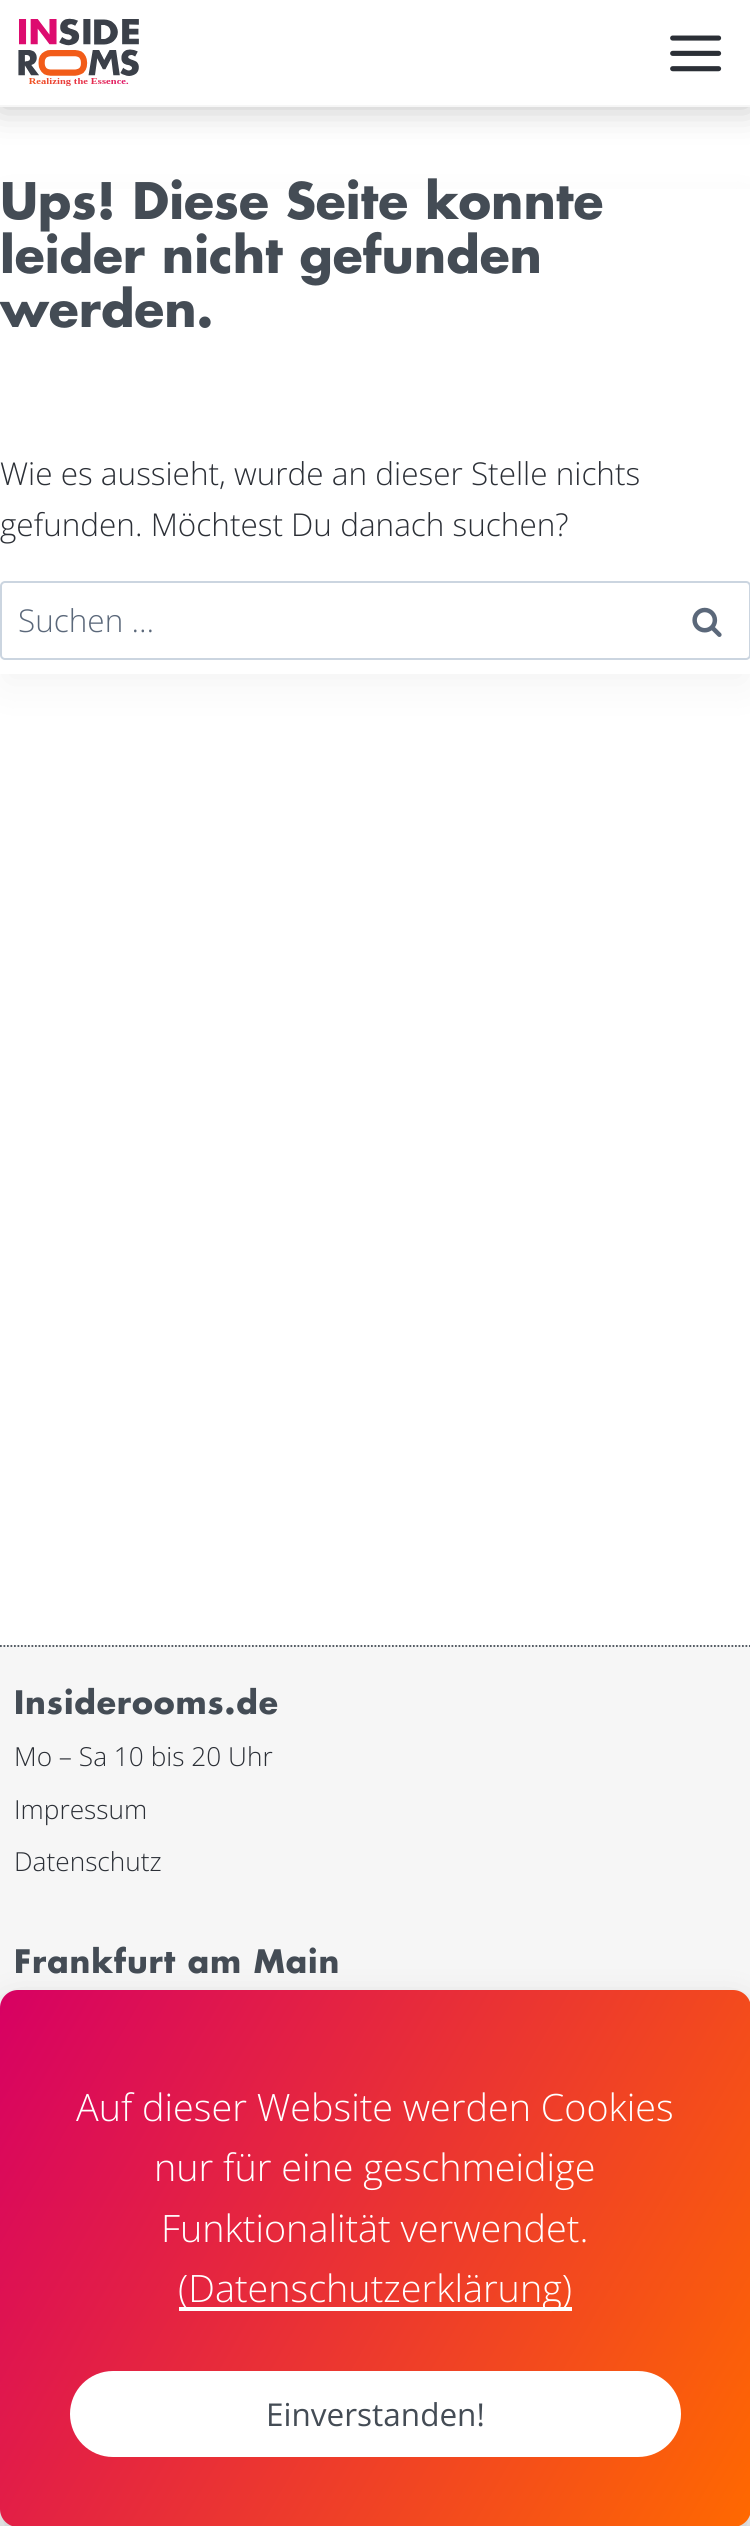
#include <cairo.h>
#include <math.h>
#include <stddef.h>

typedef struct { const char *family; double size; int italic, bold; unsigned color; } style_t;
static cairo_t *ctx;

static void ink(unsigned color) {
    cairo_set_source_rgb(ctx, (color >> 16) / 255.0, (color >> 8 & 255) / 255.0, (color & 255) / 255.0);
}

static void write(double x, double y, const char *s, const style_t *st) {
    cairo_select_font_face(ctx, st->family, st->italic ? CAIRO_FONT_SLANT_ITALIC : CAIRO_FONT_SLANT_NORMAL,
        st->bold ? CAIRO_FONT_WEIGHT_BOLD : CAIRO_FONT_WEIGHT_NORMAL);
    cairo_set_font_size(ctx, st->size);
    ink(st->color);
    cairo_move_to(ctx, x, y);
    cairo_show_text(ctx, s);
}

static void write_spaced(double x, double y, const char *s, double letter, double word) {
    cairo_move_to(ctx, x, y);
    while (*s) {
        char ch[5] = {0};
        int n = 0;
        do ch[n++] = *s++; while ((*s & 0xC0) == 0x80);
        cairo_show_text(ctx, ch);
        cairo_rel_move_to(ctx, letter + word * (*ch == ' '), 0);
    }
}

static void block(double x, double y, double w, double h, unsigned color) {
    ink(color);
    cairo_rectangle(ctx, x, y, w, h);
    cairo_fill(ctx);
}

static void round_path(double x, double y, double w, double h, double r) {
    cairo_new_sub_path(ctx);
    cairo_arc(ctx, x + w - r, y + h - r, r, 0, M_PI / 2);
    cairo_arc(ctx, x + r, y + h - r, r, M_PI / 2, M_PI);
    cairo_arc(ctx, x + r, y + r, r, M_PI, 1.5 * M_PI);
    cairo_arc(ctx, x + w - r, y + r, r, 1.5 * M_PI, 2 * M_PI);
    cairo_close_path(ctx);
}

static void blur_box(double x, double y, double w, double h, double r, double blur, double alpha) {
    cairo_push_group_with_content(ctx, CAIRO_CONTENT_ALPHA);
    cairo_set_operator(ctx, CAIRO_OPERATOR_SOURCE);
    for (int i = 15; i >= -15 && fmin(w, h) + blur * i / 3 > 0; i -= 2) {
        double e = blur * i / 6;
        cairo_set_source_rgba(ctx, 0, 0, 0, alpha * erfc((i - 1) / 8.5) / 2);
        round_path(x - e, y - e, w + 2 * e, h + 2 * e, fmax(0, fmin(r + e + blur * .6, fmin(w, h) / 2 + e)));
        cairo_fill(ctx);
    }
    cairo_pattern_t *soft = cairo_pop_group(ctx);
    cairo_mask(ctx, soft);
    cairo_pattern_destroy(soft);
}

static void paste(const char *path, double x, double y, double w, double h) {
    cairo_surface_t *image = cairo_image_surface_create_from_png(path);
    cairo_save(ctx);
    cairo_set_source_surface(ctx, image, x, y);
    cairo_rectangle(ctx, x, y, w, h);
    cairo_fill(ctx);
    cairo_restore(ctx);
    cairo_surface_destroy(image);
}

static const style_t s1 = {"Futura", 49, 0, 1, 0x444c55};
static const style_t s2 = {"Open Sans Light", 31.5, 0, 0, 0x2b2f36};
static const style_t s3 = {"Open Sans Light", 31.5, 0, 0, 0x5b687a};
static const style_t s4 = {"Open Sans Light", 26.25, 0, 0, 0x2b2f36};
static const style_t s5 = {"Open Sans Light", 37.75, 0, 0, 0xffffff};
static const style_t s6 = {"Open Sans", 31.5, 0, 0, 0x444c55};

int main(void) {
    cairo_surface_t *surface = cairo_image_surface_create(CAIRO_FORMAT_RGB24, 750, 2526);
    ctx = cairo_create(surface);
    cairo_font_options_t *options = cairo_font_options_create();
    cairo_font_options_set_hint_metrics(options, CAIRO_HINT_METRICS_OFF);
    cairo_font_options_set_hint_style(options, CAIRO_HINT_STYLE_NONE);
    cairo_set_font_options(ctx, options);
    cairo_set_miter_limit(ctx, 4);
    cairo_pattern_t *gradient;
    ink(0xffffff);
    cairo_paint(ctx);
    ink(0xc0c0c0);
    blur_box(0, 0, 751, 107, 0, 17.5, 1);
    block(0, 0, 750, 105, 0xffffff);
    block(0, 105, 750, 2, 0xf6f6f6);
    paste("pic1.png", 18, 18, 121, 68);
    paste("pic2.png", 670, 35, 52, 37);
    ink(0x000000);
    blur_box(4, 207, 743, 476, 0, 22, 0.05);
    block(0, 189, 750, 485, 0xffffff);
    write(0, 219, "Ups! Diese Seite konnte", &s1);
    write(0, 273, "leider nicht gefunden", &s1);
    write(0, 327, "werden.", &s1);
    write(0, 485, "Wie es aussieht, wurde an dieser Stelle nichts", &s2);
    write(0, 536, "gefunden. Möchtest Du danach suchen?", &s2);
    round_path(1, 582, 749, 77, 4);
    ink(0xcbd5e0);
    cairo_stroke(ctx);
    write(18, 632, "Suchen …", &s3);
    paste("pic3.png", 692, 607, 30, 30);
    block(0, 1645, 750, 363, 0xf6f6f6);
    cairo_new_path(ctx);
    cairo_move_to(ctx, 0, 1646);
    cairo_line_to(ctx, 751, 1646);
    ink(0x444c55);
    cairo_set_line_width(ctx, 1.8);
    cairo_set_dash(ctx, (double[]){1.75, 1.75}, 2, 0);
    cairo_stroke(ctx);
    cairo_select_font_face(ctx, "Futura", CAIRO_FONT_SLANT_NORMAL, CAIRO_FONT_WEIGHT_BOLD);
    write_spaced(14, 1714, "Insiderooms.de", 0.9, 0);
    write(14, 1766, "Mo – Sa 10 bis 20 Uhr", &s4);
    write(14, 1819, "Impressum", &s4);
    write(14, 1871, "Datenschutz", &s4);
    cairo_select_font_face(ctx, "Futura", CAIRO_FONT_SLANT_NORMAL, CAIRO_FONT_WEIGHT_BOLD);
    cairo_set_font_size(ctx, 31.5);
    ink(0x444c55);
    write_spaced(14, 1973, "Frankfurt am Main", 0.9, 0);
    block(0, 2509, 750, 17, 0xf6f6f6);
    ink(0x000000);
    blur_box(0, 2007, 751, 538, 18, 17.5, 0.2);
    gradient = cairo_pattern_create_linear(-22, 2029, 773, 2488);
    cairo_pattern_add_color_stop_rgba(gradient, 0, 0.843, 0, 0.388, 1);
    cairo_pattern_add_color_stop_rgba(gradient, 1, 1, 0.412, 0, 1);
    cairo_set_source(ctx, gradient);
    cairo_pattern_destroy(gradient);
    round_path(0, 1990, 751, 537, 18);
    cairo_fill(ctx);
    write(76, 2121, "Auf dieser Website werden Cookies", &s5);
    write(154, 2181, "nur für eine geschmeidige", &s5);
    write(161, 2242, "Funktionalität verwendet.", &s5);
    block(179, 2307, 393, 4, 0xffffff);
    write(178, 2302, "(Datenschutzerklärung)", &s5);
    round_path(70, 2371, 611, 86, 43);
    cairo_fill(ctx);
    write(266, 2426, "Einverstanden!", &s6);
    cairo_surface_write_to_png(surface, "screenshot.png");
    cairo_font_options_destroy(options);
    cairo_destroy(ctx);
    cairo_surface_destroy(surface);
    return 0;
}
